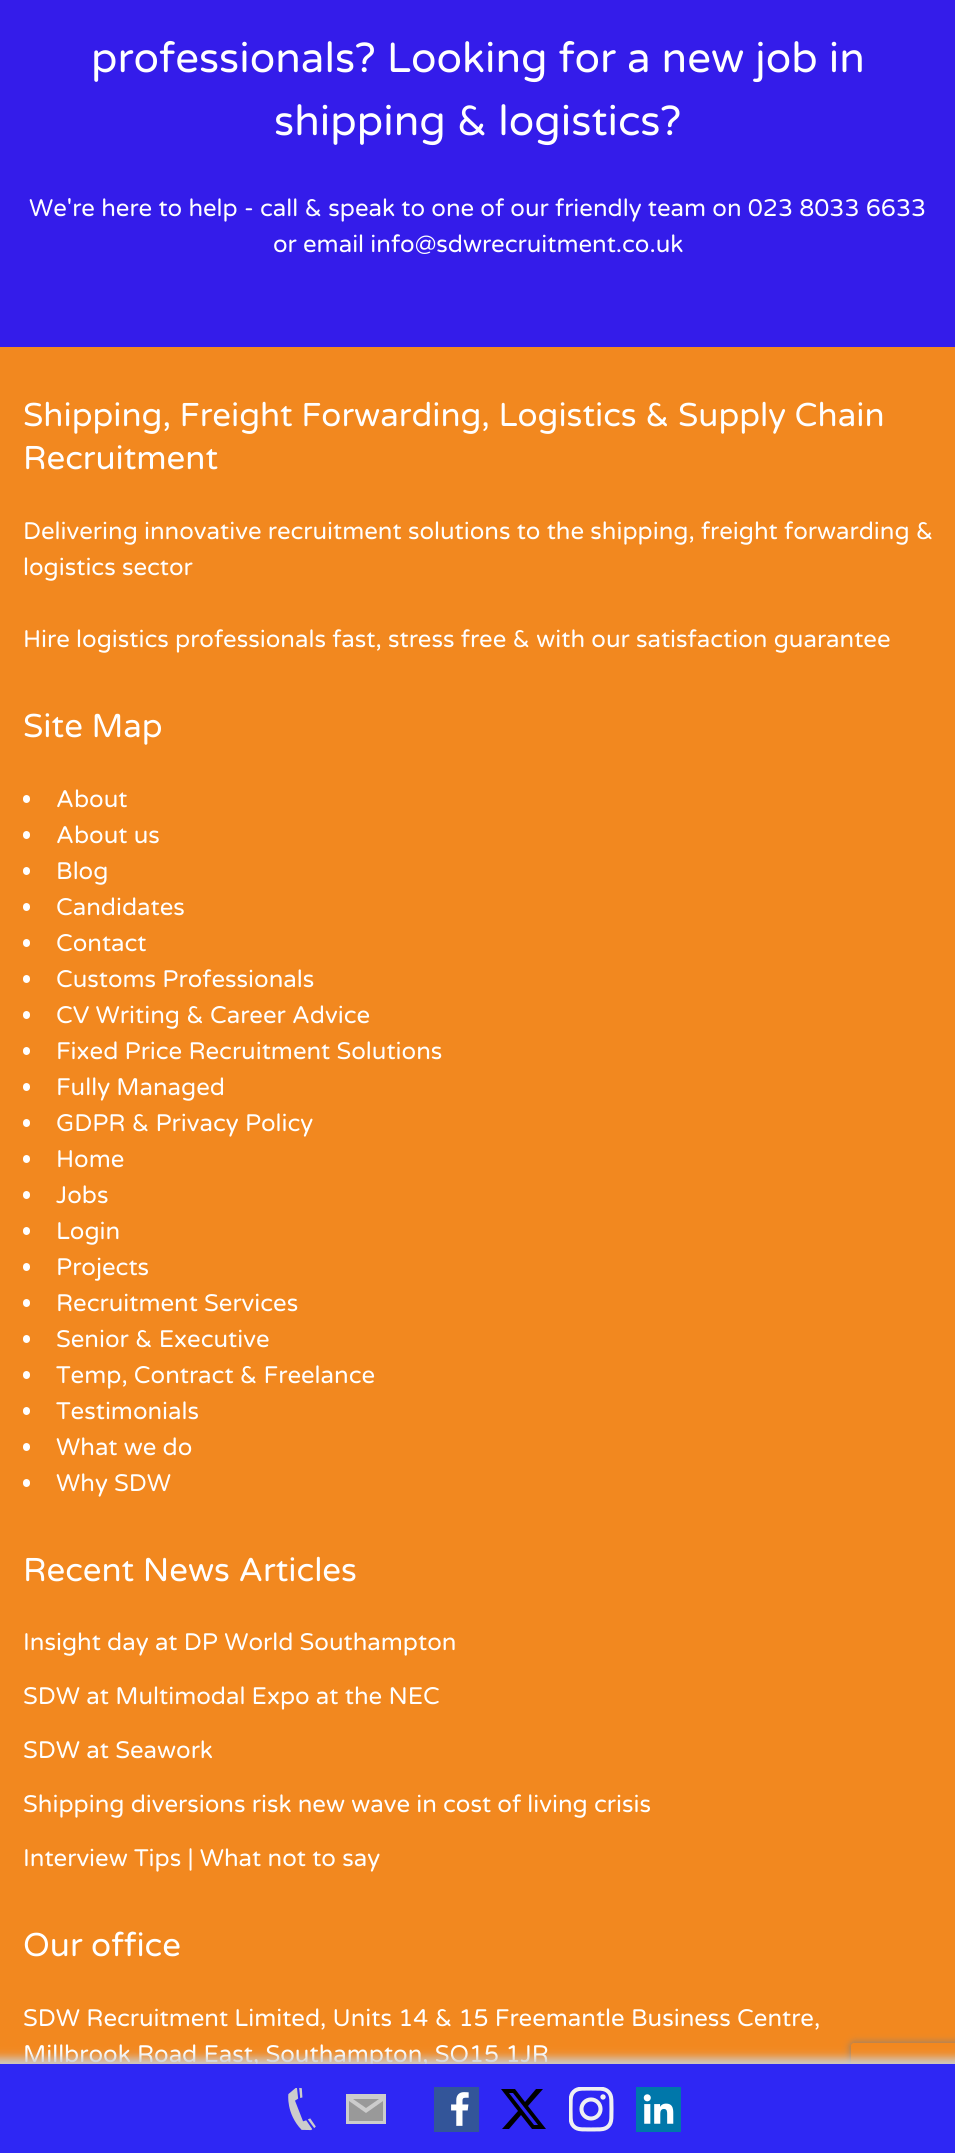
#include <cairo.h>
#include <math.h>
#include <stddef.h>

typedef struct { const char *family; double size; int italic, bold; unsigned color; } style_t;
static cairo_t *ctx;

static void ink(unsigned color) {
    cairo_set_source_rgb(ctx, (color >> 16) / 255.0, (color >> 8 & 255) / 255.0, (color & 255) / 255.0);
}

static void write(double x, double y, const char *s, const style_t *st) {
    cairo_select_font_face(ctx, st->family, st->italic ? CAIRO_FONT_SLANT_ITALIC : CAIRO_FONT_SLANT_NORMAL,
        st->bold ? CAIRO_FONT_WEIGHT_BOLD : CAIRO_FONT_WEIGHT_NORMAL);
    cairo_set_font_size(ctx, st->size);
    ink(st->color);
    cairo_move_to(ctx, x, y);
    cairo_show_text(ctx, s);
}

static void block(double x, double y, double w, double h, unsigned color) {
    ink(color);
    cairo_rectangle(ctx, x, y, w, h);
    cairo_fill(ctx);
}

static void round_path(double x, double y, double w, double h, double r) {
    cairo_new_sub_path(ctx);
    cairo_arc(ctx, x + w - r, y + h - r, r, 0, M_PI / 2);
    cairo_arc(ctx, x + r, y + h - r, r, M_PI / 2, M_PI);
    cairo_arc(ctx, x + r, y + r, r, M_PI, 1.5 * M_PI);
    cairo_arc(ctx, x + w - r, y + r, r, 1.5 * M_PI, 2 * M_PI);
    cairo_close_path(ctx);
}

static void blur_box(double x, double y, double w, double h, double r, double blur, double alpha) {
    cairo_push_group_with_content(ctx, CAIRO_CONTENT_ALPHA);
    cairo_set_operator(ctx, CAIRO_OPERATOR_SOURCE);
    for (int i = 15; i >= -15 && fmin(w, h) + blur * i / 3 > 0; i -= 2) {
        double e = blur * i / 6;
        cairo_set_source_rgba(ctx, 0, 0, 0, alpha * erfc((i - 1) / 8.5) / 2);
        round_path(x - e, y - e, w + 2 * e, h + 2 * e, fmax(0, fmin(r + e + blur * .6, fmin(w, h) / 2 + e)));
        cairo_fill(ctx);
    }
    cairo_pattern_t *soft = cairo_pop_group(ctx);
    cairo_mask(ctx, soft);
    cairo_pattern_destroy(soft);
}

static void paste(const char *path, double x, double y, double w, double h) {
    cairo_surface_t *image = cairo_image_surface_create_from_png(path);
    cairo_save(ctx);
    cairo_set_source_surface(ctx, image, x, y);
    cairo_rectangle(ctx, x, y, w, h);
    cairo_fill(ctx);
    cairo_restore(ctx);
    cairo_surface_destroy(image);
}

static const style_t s1 = {"Varela Round", 42, 0, 0, 0xffffff};
static const style_t s2 = {"Varela Round", 24, 0, 0, 0xffffff};
static const style_t s3 = {"Varela Round", 33, 0, 0, 0xffffff};

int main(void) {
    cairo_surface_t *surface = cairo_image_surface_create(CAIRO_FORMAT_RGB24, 955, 2153);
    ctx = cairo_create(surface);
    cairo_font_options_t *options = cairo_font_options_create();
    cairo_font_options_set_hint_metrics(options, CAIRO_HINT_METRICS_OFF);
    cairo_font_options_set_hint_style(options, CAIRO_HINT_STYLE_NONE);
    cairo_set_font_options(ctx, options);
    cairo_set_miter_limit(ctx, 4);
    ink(0x341cea);
    cairo_paint(ctx);
    write(91, 72, "professionals? Looking for a new job in", &s1);
    write(274, 135, "shipping & logistics?", &s1);
    write(29, 216, "We're here to help - call & speak to one of our friendly team on 023 8033 6633", &s2);
    write(273, 252, "or email info@sdwrecruitment.co.uk", &s2);
    block(0, 347, 955, 1717, 0xf2881f);
    write(23, 426, "Shipping, Freight Forwarding, Logistics & Supply Chain", &s3);
    write(23, 469, "Recruitment", &s3);
    write(23, 539, "Delivering innovative recruitment solutions to the shipping, freight forwarding &", &s2);
    write(23, 575, "logistics sector", &s2);
    write(23, 647, "Hire logistics professionals fast, stress free & with our satisfaction guarantee", &s2);
    write(23, 737, "Site Map", &s3);
    round_path(23, 795, 7, 8, 3.5);
    cairo_fill(ctx);
    write(56, 807, "About", &s2);
    round_path(23, 831, 7, 8, 3.5);
    cairo_fill(ctx);
    write(56, 843, "About us", &s2);
    round_path(23, 867, 7, 8, 3.5);
    cairo_fill(ctx);
    write(56, 879, "Blog", &s2);
    round_path(23, 903, 7, 8, 3.5);
    cairo_fill(ctx);
    write(56, 915, "Candidates", &s2);
    round_path(23, 939, 7, 8, 3.5);
    cairo_fill(ctx);
    write(56, 951, "Contact", &s2);
    round_path(23, 975, 7, 8, 3.5);
    cairo_fill(ctx);
    write(56, 987, "Customs Professionals", &s2);
    round_path(23, 1011, 7, 8, 3.5);
    cairo_fill(ctx);
    write(56, 1023, "CV Writing & Career Advice", &s2);
    round_path(23, 1047, 7, 8, 3.5);
    cairo_fill(ctx);
    write(56, 1059, "Fixed Price Recruitment Solutions", &s2);
    round_path(23, 1083, 7, 8, 3.5);
    cairo_fill(ctx);
    write(56, 1095, "Fully Managed", &s2);
    round_path(23, 1119, 7, 8, 3.5);
    cairo_fill(ctx);
    write(56, 1131, "GDPR & Privacy Policy", &s2);
    round_path(23, 1155, 7, 8, 3.5);
    cairo_fill(ctx);
    write(56, 1167, "Home", &s2);
    round_path(23, 1191, 7, 8, 3.5);
    cairo_fill(ctx);
    write(56, 1203, "Jobs", &s2);
    round_path(23, 1227, 7, 8, 3.5);
    cairo_fill(ctx);
    write(56, 1239, "Login", &s2);
    round_path(23, 1263, 7, 8, 3.5);
    cairo_fill(ctx);
    write(56, 1275, "Projects", &s2);
    round_path(23, 1299, 7, 8, 3.5);
    cairo_fill(ctx);
    write(56, 1311, "Recruitment Services", &s2);
    round_path(23, 1335, 7, 8, 3.5);
    cairo_fill(ctx);
    write(56, 1347, "Senior & Executive", &s2);
    round_path(23, 1371, 7, 8, 3.5);
    cairo_fill(ctx);
    write(56, 1383, "Temp, Contract & Freelance", &s2);
    round_path(23, 1407, 7, 8, 3.5);
    cairo_fill(ctx);
    write(56, 1419, "Testimonials", &s2);
    round_path(23, 1443, 7, 8, 3.5);
    cairo_fill(ctx);
    write(56, 1455, "What we do", &s2);
    round_path(23, 1479, 7, 8, 3.5);
    cairo_fill(ctx);
    write(56, 1491, "Why SDW", &s2);
    write(23, 1581, "Recent News Articles", &s3);
    write(23, 1650, "Insight day at DP World Southampton", &s2);
    write(23, 1704, "SDW at Multimodal Expo at the NEC", &s2);
    write(23, 1758, "SDW at Seawork", &s2);
    write(23, 1812, "Shipping diversions risk new wave in cost of living crisis", &s2);
    write(23, 1866, "Interview Tips | What not to say", &s2);
    write(23, 1956, "Our office", &s3);
    write(23, 2026, "SDW Recruitment Limited, Units 14 & 15 Freemantle Business Centre,", &s2);
    write(23, 2062, "Millbrook Road East, Southampton, SO15 1JR", &s2);
    cairo_save(ctx);
    cairo_set_fill_rule(ctx, CAIRO_FILL_RULE_EVEN_ODD);
    cairo_new_path(ctx);
    cairo_move_to(ctx, 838, 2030);
    cairo_line_to(ctx, 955, 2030);
    cairo_line_to(ctx, 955, 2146);
    cairo_line_to(ctx, 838, 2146);
    cairo_close_path(ctx);
    cairo_move_to(ctx, 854, 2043);
    cairo_line_to(ctx, 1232, 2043);
    cairo_curve_to(ctx, 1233.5, 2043, 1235, 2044.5, 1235, 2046);
    cairo_line_to(ctx, 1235, 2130);
    cairo_curve_to(ctx, 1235, 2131.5, 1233.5, 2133, 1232, 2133);
    cairo_line_to(ctx, 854, 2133);
    cairo_curve_to(ctx, 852.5, 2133, 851, 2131.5, 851, 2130);
    cairo_line_to(ctx, 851, 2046);
    cairo_curve_to(ctx, 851, 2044.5, 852.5, 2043, 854, 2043);
    cairo_close_path(ctx);
    cairo_clip(ctx);
    ink(0x808080);
    blur_box(851, 2043, 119, 90, 3, 4, 1);
    cairo_restore(ctx);
    ink(0xcccccc);
    blur_box(-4, 2058, 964, 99, 0, 4.5, 1);
    block(0, 2064, 955, 89, 0x2e27f4);
    paste("pic1.png", 288, 2087, 28, 44);
    block(349, 2099, 34, 22, 0x999999);
    ink(0xcccccc);
    cairo_new_path(ctx);
    cairo_move_to(ctx, 346, 2094);
    cairo_line_to(ctx, 346, 2124);
    cairo_line_to(ctx, 386, 2124);
    cairo_line_to(ctx, 386, 2094);
    cairo_close_path(ctx);
    cairo_move_to(ctx, 379, 2099);
    cairo_line_to(ctx, 366, 2108);
    cairo_line_to(ctx, 353, 2099);
    cairo_close_path(ctx);
    cairo_move_to(ctx, 383, 2121);
    cairo_line_to(ctx, 349, 2121);
    cairo_line_to(ctx, 349, 2101);
    cairo_line_to(ctx, 366, 2113);
    cairo_line_to(ctx, 383, 2101);
    cairo_close_path(ctx);
    cairo_fill(ctx);
    paste("pic2.png", 434, 2087, 45, 45);
    ink(0x000000);
    cairo_new_path(ctx);
    cairo_move_to(ctx, 536, 2089);
    cairo_line_to(ctx, 543, 2089);
    cairo_line_to(ctx, 528, 2106);
    cairo_line_to(ctx, 546, 2129);
    cairo_line_to(ctx, 532, 2129);
    cairo_line_to(ctx, 521, 2115);
    cairo_line_to(ctx, 509, 2129);
    cairo_line_to(ctx, 502, 2129);
    cairo_line_to(ctx, 518, 2111);
    cairo_line_to(ctx, 501, 2089);
    cairo_line_to(ctx, 515, 2089);
    cairo_line_to(ctx, 525, 2102);
    cairo_close_path(ctx);
    cairo_move_to(ctx, 534, 2125);
    cairo_line_to(ctx, 538, 2125);
    cairo_line_to(ctx, 513, 2093);
    cairo_line_to(ctx, 509, 2093);
    cairo_close_path(ctx);
    cairo_fill(ctx);
    paste("pic3.png", 569, 2087, 45, 45);
    paste("pic4.png", 636, 2087, 45, 45);
    cairo_surface_write_to_png(surface, "screenshot.png");
    cairo_font_options_destroy(options);
    cairo_destroy(ctx);
    cairo_surface_destroy(surface);
    return 0;
}
